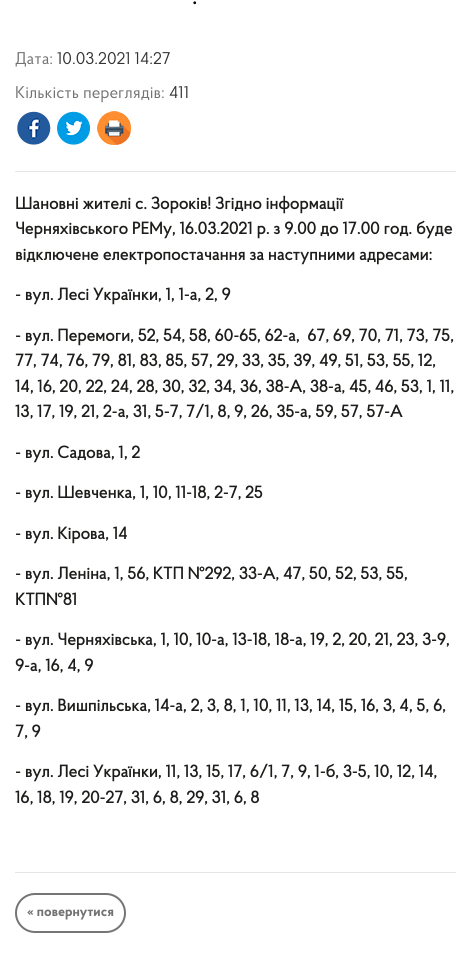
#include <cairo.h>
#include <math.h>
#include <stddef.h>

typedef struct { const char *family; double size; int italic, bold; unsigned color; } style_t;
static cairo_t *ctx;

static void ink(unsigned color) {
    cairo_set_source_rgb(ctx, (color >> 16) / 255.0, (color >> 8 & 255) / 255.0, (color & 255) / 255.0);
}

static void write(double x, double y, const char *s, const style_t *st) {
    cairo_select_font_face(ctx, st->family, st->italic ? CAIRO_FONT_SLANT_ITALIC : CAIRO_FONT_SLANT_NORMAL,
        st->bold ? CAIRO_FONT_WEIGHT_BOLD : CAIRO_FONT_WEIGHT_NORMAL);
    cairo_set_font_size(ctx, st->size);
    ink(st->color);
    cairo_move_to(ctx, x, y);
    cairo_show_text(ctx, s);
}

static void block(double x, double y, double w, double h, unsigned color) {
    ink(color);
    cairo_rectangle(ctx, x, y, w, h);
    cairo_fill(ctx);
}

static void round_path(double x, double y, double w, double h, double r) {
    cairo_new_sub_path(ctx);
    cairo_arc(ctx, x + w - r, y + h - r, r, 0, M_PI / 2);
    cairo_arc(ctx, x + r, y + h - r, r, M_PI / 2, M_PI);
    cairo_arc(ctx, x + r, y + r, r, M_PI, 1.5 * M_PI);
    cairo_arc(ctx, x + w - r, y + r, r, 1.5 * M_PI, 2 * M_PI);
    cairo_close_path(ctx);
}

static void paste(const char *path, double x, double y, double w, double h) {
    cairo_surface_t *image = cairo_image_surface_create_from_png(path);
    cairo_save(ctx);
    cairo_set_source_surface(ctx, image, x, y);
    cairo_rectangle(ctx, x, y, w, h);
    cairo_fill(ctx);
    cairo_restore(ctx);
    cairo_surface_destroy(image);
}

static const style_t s1 = {"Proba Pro", 22, 0, 1, 0x000000};
static const style_t s2 = {"Proba Pro", 17, 0, 0, 0x727272};
static const style_t s3 = {"Proba Pro", 17, 0, 0, 0x333333};
static const style_t s4 = {"Proba Pro", 17, 0, 1, 0x1d1d1b};
static const style_t s5 = {"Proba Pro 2", 14, 0, 1, 0x727272};

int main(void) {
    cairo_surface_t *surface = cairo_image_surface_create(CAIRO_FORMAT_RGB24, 471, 966);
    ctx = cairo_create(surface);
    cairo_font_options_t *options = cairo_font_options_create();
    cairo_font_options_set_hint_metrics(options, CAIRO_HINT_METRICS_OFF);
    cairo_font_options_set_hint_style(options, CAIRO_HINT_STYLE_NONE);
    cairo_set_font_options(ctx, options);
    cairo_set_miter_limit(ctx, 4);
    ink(0xffffff);
    cairo_paint(ctx);
    write(192, 4, ".", &s1);
    write(15, 64, "Дата:", &s2);
    write(57, 64, "10.03.2021 14:27", &s3);
    write(15, 98, "Кількість переглядів:", &s2);
    write(169, 98, "411", &s3);
    paste("pic1.png", 17, 111, 34, 34);
    paste("pic2.png", 57, 111, 33, 34);
    paste("pic3.png", 97, 111, 34, 34);
    block(15, 171, 441, 1, 0xe5e5e5);
    write(15, 209, "Шановні жителі с. Зороків! Згідно інформації", &s4);
    write(15, 234, "Черняхівського РЕМу, 16.03.2021 р. з 9.00 до 17.00 год. буде", &s4);
    write(15, 260, "відключене електропостачання за наступними адресами:", &s4);
    write(15, 300, "- вул. Лесі Українки, 1, 1-а, 2, 9", &s4);
    write(15, 341, "- вул. Перемоги, 52, 54, 58, 60-65, 62-а,  67, 69, 70, 71, 73, 75,", &s4);
    write(15, 366, "77, 74, 76, 79, 81, 83, 85, 57, 29, 33, 35, 39, 49, 51, 53, 55, 12,", &s4);
    write(15, 392, "14, 16, 20, 22, 24, 28, 30, 32, 34, 36, 38-А, 38-а, 45, 46, 53, 1, 11,", &s4);
    write(15, 417, "13, 17, 19, 21, 2-а, 31, 5-7, 7/1, 8, 9, 26, 35-а, 59, 57, 57-А", &s4);
    write(15, 458, "- вул. Садова, 1, 2", &s4);
    write(15, 498, "- вул. Шевченка, 1, 10, 11-18, 2-7, 25", &s4);
    write(15, 539, "- вул. Кірова, 14", &s4);
    write(15, 579, "- вул. Леніна, 1, 56, КТП №292, 33-А, 47, 50, 52, 53, 55,", &s4);
    write(15, 605, "КТП№81", &s4);
    write(15, 645, "- вул. Черняхівська, 1, 10, 10-а, 13-18, 18-а, 19, 2, 20, 21, 23, 3-9,", &s4);
    write(15, 671, "9-а, 16, 4, 9", &s4);
    write(15, 711, "- вул. Вишпільська, 14-а, 2, 3, 8, 1, 10, 11, 13, 14, 15, 16, 3, 4, 5, 6,", &s4);
    write(15, 737, "7, 9", &s4);
    write(15, 777, "- вул. Лесі Українки, 11, 13, 15, 17, 6/1, 7, 9, 1-б, 3-5, 10, 12, 14,", &s4);
    write(15, 803, "16, 18, 19, 20-27, 31, 6, 8, 29, 31, 6, 8", &s4);
    block(15, 872, 441, 1, 0xe5e5e5);
    round_path(16, 894, 109, 38, 19);
    ink(0x757575);
    cairo_stroke(ctx);
    write(27, 916, "« повернутися", &s5);
    cairo_surface_write_to_png(surface, "screenshot.png");
    cairo_font_options_destroy(options);
    cairo_destroy(ctx);
    cairo_surface_destroy(surface);
    return 0;
}
